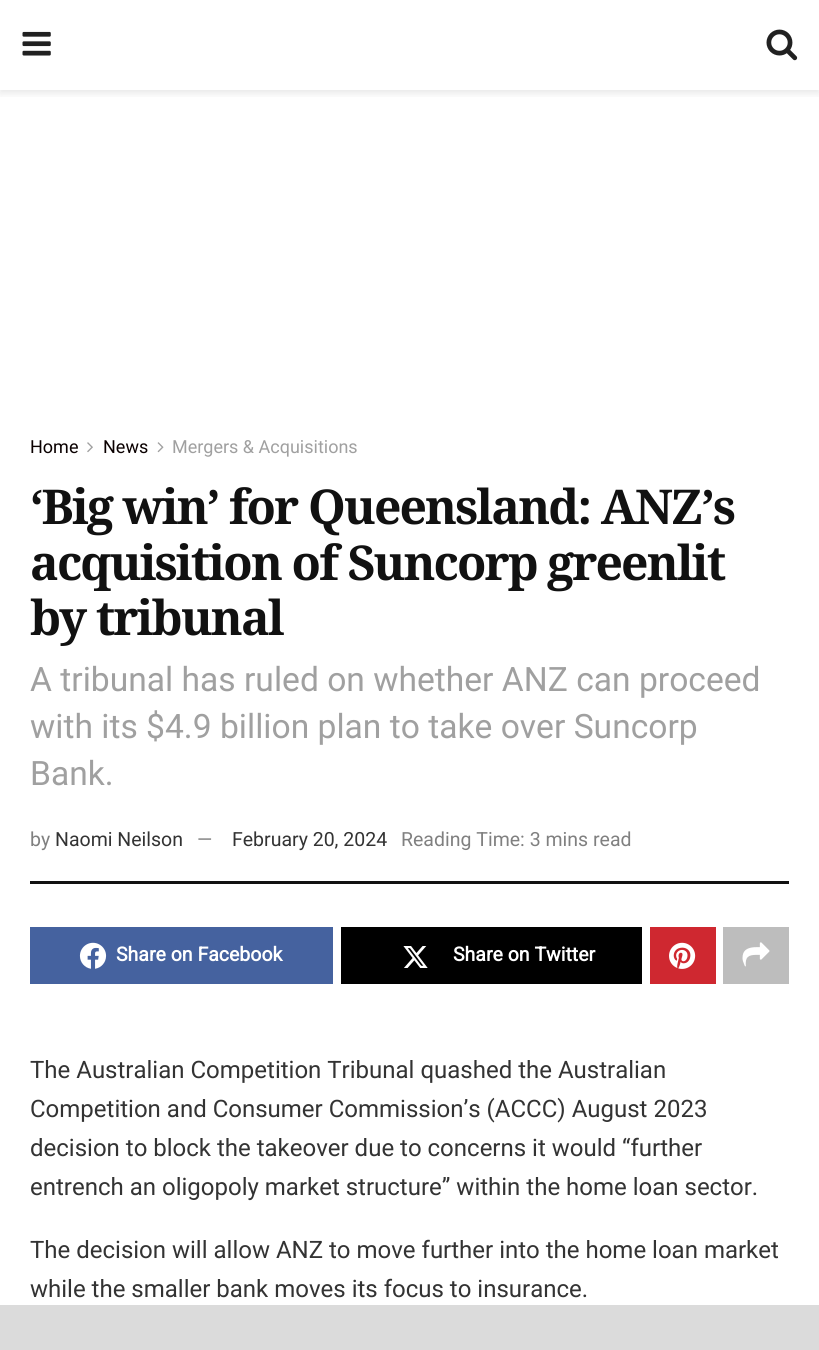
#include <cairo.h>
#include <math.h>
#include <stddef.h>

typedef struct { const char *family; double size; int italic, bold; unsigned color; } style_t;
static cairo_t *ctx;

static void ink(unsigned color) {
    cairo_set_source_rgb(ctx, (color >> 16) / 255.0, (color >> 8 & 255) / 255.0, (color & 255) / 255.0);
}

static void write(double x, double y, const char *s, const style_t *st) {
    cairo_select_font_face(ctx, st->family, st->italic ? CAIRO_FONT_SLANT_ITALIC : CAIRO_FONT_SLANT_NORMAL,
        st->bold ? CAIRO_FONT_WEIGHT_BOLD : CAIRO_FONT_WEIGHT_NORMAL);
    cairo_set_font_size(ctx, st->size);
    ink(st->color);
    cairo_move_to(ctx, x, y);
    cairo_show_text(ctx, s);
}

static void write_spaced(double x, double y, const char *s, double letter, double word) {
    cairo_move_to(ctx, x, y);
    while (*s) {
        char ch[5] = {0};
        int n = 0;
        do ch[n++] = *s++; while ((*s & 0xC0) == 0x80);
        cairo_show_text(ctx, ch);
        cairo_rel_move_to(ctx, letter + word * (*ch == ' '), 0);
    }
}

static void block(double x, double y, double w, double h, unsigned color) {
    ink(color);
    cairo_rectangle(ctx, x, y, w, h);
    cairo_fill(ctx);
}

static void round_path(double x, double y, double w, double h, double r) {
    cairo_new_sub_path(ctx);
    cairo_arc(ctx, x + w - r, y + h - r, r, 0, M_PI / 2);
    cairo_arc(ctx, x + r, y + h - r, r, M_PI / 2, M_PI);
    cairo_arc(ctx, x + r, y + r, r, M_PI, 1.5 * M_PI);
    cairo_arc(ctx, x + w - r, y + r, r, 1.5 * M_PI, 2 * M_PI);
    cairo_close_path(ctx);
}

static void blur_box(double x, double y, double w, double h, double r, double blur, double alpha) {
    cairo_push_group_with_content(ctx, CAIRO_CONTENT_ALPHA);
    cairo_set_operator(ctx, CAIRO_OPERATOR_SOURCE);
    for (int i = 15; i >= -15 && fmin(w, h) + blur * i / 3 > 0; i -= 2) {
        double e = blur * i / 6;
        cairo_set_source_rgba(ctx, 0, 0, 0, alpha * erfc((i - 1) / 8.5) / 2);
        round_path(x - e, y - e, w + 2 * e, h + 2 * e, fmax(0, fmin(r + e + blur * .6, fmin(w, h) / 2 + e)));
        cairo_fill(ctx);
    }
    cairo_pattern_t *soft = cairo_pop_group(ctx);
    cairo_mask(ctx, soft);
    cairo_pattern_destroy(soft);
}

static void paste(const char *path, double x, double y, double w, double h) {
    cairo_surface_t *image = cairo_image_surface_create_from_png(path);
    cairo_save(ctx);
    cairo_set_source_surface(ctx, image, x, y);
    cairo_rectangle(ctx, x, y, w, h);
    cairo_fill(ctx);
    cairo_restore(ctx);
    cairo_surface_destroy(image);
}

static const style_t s1 = {"Roboto", 18, 0, 0, 0x0a0000};
static const style_t s2 = {"Roboto", 18, 0, 0, 0xa0a0a0};
static const style_t s3 = {"Roboto", 33.6, 0, 0, 0xa0a0a0};
static const style_t s4 = {"Roboto", 19.5, 0, 0, 0x808080};
static const style_t s5 = {"Roboto", 19.5, 0, 0, 0x333333};
static const style_t s6 = {"Roboto", 19.5, 0, 1, 0xffffff};
static const style_t s7 = {"Roboto", 24, 0, 0, 0x333333};

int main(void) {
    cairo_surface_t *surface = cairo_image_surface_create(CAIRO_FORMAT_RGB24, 819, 1350);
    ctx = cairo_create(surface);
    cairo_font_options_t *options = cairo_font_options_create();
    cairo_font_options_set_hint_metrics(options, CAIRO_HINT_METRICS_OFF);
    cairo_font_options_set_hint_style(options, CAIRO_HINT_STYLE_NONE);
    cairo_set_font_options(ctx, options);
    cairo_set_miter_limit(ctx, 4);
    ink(0xffffff);
    cairo_paint(ctx);
    cairo_save(ctx);
    cairo_rectangle(ctx, 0, 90, 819, 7);
    cairo_clip(ctx);
    ink(0x000000);
    blur_box(0, 3, 819, 90, 0, 4.5, 0.1);
    cairo_restore(ctx);
    paste("pic1.png", 22, 31, 29, 25);
    paste("pic2.png", 766, 29, 32, 32);
    write(30, 453, "Home", &s1);
    paste("pic3.png", 87, 442, 6, 11);
    write(103, 453, "News", &s1);
    paste("pic4.png", 157, 442, 7, 11);
    write(172, 453, "Mergers & Acquisitions", &s2);
    block(30, 881, 759, 3, 0x111111);
    cairo_select_font_face(ctx, "Noto Serif", CAIRO_FONT_SLANT_NORMAL, CAIRO_FONT_WEIGHT_BOLD);
    cairo_set_font_size(ctx, 48);
    write_spaced(30, 524, "‘Big win’ for Queensland: ANZ’s", -1.9, 0);
    write_spaced(30, 580, "acquisition of Suncorp greenlit", -1.9, 0);
    write_spaced(30, 635, "by tribunal", -1.9, 0);
    write(30, 691, "A tribunal has ruled on whether ANZ can proceed", &s3);
    write(30, 738, "with its $4.9 billion plan to take over Suncorp", &s3);
    write(30, 785, "Bank.", &s3);
    write(30, 846, "by", &s4);
    write(55, 846, "Naomi Neilson", &s5);
    write(197, 846, "—", &s4);
    write(232, 846, "February 20, 2024", &s5);
    write(401, 846, "Reading Time: 3 mins read", &s4);
    block(30, 927, 303, 57, 0x45629f);
    paste("pic5.png", 79, 942, 28, 27);
    write(116, 961, "Share on Facebook", &s6);
    block(341, 927, 301, 57, 0x000000);
    paste("pic6.png", 403, 946, 25, 22);
    write(453, 961, "Share on Twitter", &s6);
    block(650, 927, 66, 57, 0xcf2830);
    paste("pic7.png", 669, 942, 27, 27);
    block(723, 927, 66, 57, 0xbdbdbd);
    paste("pic8.png", 742, 942, 28, 25);
    write(30, 1078, "The Australian Competition Tribunal quashed the Australian", &s7);
    write(30, 1117, "Competition and Consumer Commission’s (ACCC) August 2023", &s7);
    write(30, 1156, "decision to block the takeover due to concerns it would “further", &s7);
    write(30, 1195, "entrench an oligopoly market structure” within the home loan sector.", &s7);
    write(30, 1258, "The decision will allow ANZ to move further into the home loan market", &s7);
    write(30, 1297, "while the smaller bank moves its focus to insurance.", &s7);
    block(0, 1305, 819, 45, 0xdbdbdb);
    cairo_surface_write_to_png(surface, "screenshot.png");
    cairo_font_options_destroy(options);
    cairo_destroy(ctx);
    cairo_surface_destroy(surface);
    return 0;
}
